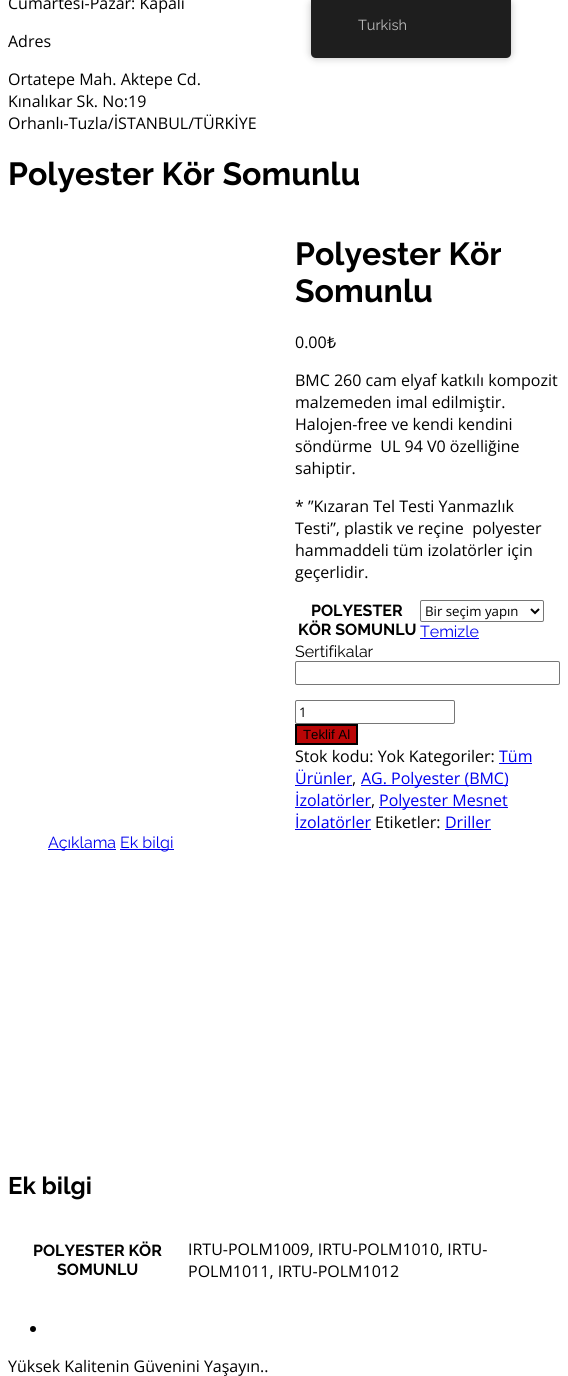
#include <cairo.h>
#include <math.h>
#include <stddef.h>

typedef struct { const char *family; double size; int italic, bold; unsigned color; } style_t;
static cairo_t *ctx;

static void ink(unsigned color) {
    cairo_set_source_rgb(ctx, (color >> 16) / 255.0, (color >> 8 & 255) / 255.0, (color & 255) / 255.0);
}

static void write(double x, double y, const char *s, const style_t *st) {
    cairo_select_font_face(ctx, st->family, st->italic ? CAIRO_FONT_SLANT_ITALIC : CAIRO_FONT_SLANT_NORMAL,
        st->bold ? CAIRO_FONT_WEIGHT_BOLD : CAIRO_FONT_WEIGHT_NORMAL);
    cairo_set_font_size(ctx, st->size);
    ink(st->color);
    cairo_move_to(ctx, x, y);
    cairo_show_text(ctx, s);
}

static void block(double x, double y, double w, double h, unsigned color) {
    ink(color);
    cairo_rectangle(ctx, x, y, w, h);
    cairo_fill(ctx);
}

static void round_path(double x, double y, double w, double h, double r) {
    cairo_new_sub_path(ctx);
    cairo_arc(ctx, x + w - r, y + h - r, r, 0, M_PI / 2);
    cairo_arc(ctx, x + r, y + h - r, r, M_PI / 2, M_PI);
    cairo_arc(ctx, x + r, y + r, r, M_PI, 1.5 * M_PI);
    cairo_arc(ctx, x + w - r, y + r, r, 1.5 * M_PI, 2 * M_PI);
    cairo_close_path(ctx);
}

static void blur_box(double x, double y, double w, double h, double r, double blur, double alpha) {
    cairo_push_group_with_content(ctx, CAIRO_CONTENT_ALPHA);
    cairo_set_operator(ctx, CAIRO_OPERATOR_SOURCE);
    for (int i = 15; i >= -15 && fmin(w, h) + blur * i / 3 > 0; i -= 2) {
        double e = blur * i / 6;
        cairo_set_source_rgba(ctx, 0, 0, 0, alpha * erfc((i - 1) / 8.5) / 2);
        round_path(x - e, y - e, w + 2 * e, h + 2 * e, fmax(0, fmin(r + e + blur * .6, fmin(w, h) / 2 + e)));
        cairo_fill(ctx);
    }
    cairo_pattern_t *soft = cairo_pop_group(ctx);
    cairo_mask(ctx, soft);
    cairo_pattern_destroy(soft);
}

static const style_t s1 = {"Open Sans", 16, 0, 0, 0x000000};
static const style_t s2 = {"Raleway", 32, 0, 1, 0x000000};
static const style_t s3 = {"Noto Sans", 16, 0, 0, 0x000000};
static const style_t s4 = {"Raleway", 16, 0, 1, 0x000000};
static const style_t s5 = {"Open Sans", 13.25, 0, 0, 0x000000};
static const style_t s6 = {"Raleway", 16, 0, 0, 0x0000ee};
static const style_t s7 = {"Raleway", 16, 0, 0, 0x000000};
static const style_t s8 = {"Liberation Sans", 13.25, 0, 0, 0x000000};
static const style_t s9 = {"Open Sans", 16, 0, 0, 0x0000ee};
static const style_t s10 = {"Raleway", 24, 0, 1, 0x000000};
static const style_t s11 = {"Raleway", 14.5, 0, 0, 0xbdbdbd};

int main(void) {
    cairo_surface_t *surface = cairo_image_surface_create(CAIRO_FORMAT_RGB24, 568, 1376);
    ctx = cairo_create(surface);
    cairo_font_options_t *options = cairo_font_options_create();
    cairo_font_options_set_hint_metrics(options, CAIRO_HINT_METRICS_OFF);
    cairo_font_options_set_hint_style(options, CAIRO_HINT_STYLE_NONE);
    cairo_set_font_options(ctx, options);
    cairo_set_miter_limit(ctx, 4);
    ink(0xffffff);
    cairo_paint(ctx);
    write(8, 9, "Cumartesi-Pazar: Kapalı", &s1);
    write(8, 47, "Adres", &s1);
    write(8, 85, "Ortatepe Mah. Aktepe Cd.", &s1);
    write(8, 107, "Kınalıkar Sk. No:19", &s1);
    write(8, 129, "Orhanlı-Tuzla/İSTANBUL/TÜRKİYE", &s1);
    write(8, 185, "Polyester Kör Somunlu", &s2);
    write(295, 265, "Polyester Kör", &s2);
    write(295, 302, "Somunlu", &s2);
    write(295, 348, "0.00", &s1);
    write(327, 348, "₺", &s3);
    write(295, 386, "BMC 260 cam elyaf katkılı kompozit", &s1);
    write(295, 408, "malzemeden imal edilmiştir.", &s1);
    write(295, 430, "Halojen-free ve kendi kendini", &s1);
    write(295, 452, "söndürme  UL 94 V0 özelliğine", &s1);
    write(295, 474, "sahiptir.", &s1);
    write(295, 512, "* ”Kızaran Tel Testi Yanmazlık", &s1);
    write(295, 534, "Testi”, plastik ve reçine  polyester", &s1);
    write(295, 556, "hammaddeli tüm izolatörler için", &s1);
    write(295, 578, "geçerlidir.", &s1);
    write(311, 616, "POLYESTER", &s4);
    write(298, 635, "KÖR SOMUNLU", &s4);
    round_path(420.5, 600.5, 123, 21, 1.5);
    ink(0x767676);
    cairo_set_line_width(ctx, 1);
    cairo_stroke(ctx);
    cairo_new_path(ctx);
    cairo_move_to(ctx, 531, 609);
    cairo_line_to(ctx, 535, 613);
    cairo_line_to(ctx, 539, 609);
    ink(0x000000);
    cairo_set_line_width(ctx, 2);
    cairo_stroke(ctx);
    write(425, 616, "Bir seçim yapın", &s5);
    write(420, 637, "Temizle", &s6);
    block(420, 638, 59, 1, 0x0000ee);
    write(295, 657, "Sertifikalar", &s7);
    round_path(295.5, 661.5, 264, 23, 1.5);
    ink(0x767676);
    cairo_set_line_width(ctx, 1);
    cairo_stroke(ctx);
    round_path(295.5, 700.5, 159, 23, 1.5);
    cairo_stroke(ctx);
    write(299, 717, "1", &s5);
    ink(0xba0607);
    cairo_rectangle(ctx, 296, 725, 61, 19);
    cairo_fill_preserve(ctx);
    ink(0x000000);
    cairo_set_line_width(ctx, 2);
    cairo_stroke(ctx);
    write(303, 739, "Teklif Al", &s8);
    write(295, 762, "Stok kodu: Yok Kategoriler:", &s1);
    write(499, 762, "Tüm", &s9);
    block(499, 763, 33, 1, 0x0000ee);
    write(295, 784, "Ürünler", &s9);
    write(352, 784, ",", &s1);
    block(295, 785, 57, 1, 0x0000ee);
    block(361, 785, 147, 1, 0x0000ee);
    write(361, 784, "AG. Polyester (BMC)", &s9);
    write(295, 806, "İzolatörler", &s9);
    write(371, 806, ",", &s1);
    block(295, 807, 76, 1, 0x0000ee);
    block(379, 807, 129, 1, 0x0000ee);
    write(379, 806, "Polyester Mesnet", &s9);
    write(295, 828, "İzolatörler", &s9);
    block(295, 829, 76, 1, 0x0000ee);
    write(375, 828, "Etiketler:", &s1);
    write(445, 828, "Driller", &s9);
    block(445, 829, 46, 1, 0x0000ee);
    block(48, 849, 68, 1, 0x0000ee);
    write(48, 848, "Açıklama", &s6);
    block(120, 849, 54, 1, 0x0000ee);
    write(120, 848, "Ek bilgi", &s6);
    write(8, 1194, "Ek bilgi", &s10);
    write(33, 1256, "POLYESTER KÖR", &s4);
    write(57, 1275, "SOMUNLU", &s4);
    write(188, 1255, "IRTU-POLM1009, IRTU-POLM1010, IRTU-", &s1);
    write(188, 1277, "POLM1011, IRTU-POLM1012", &s1);
    cairo_new_path(ctx);
    cairo_arc(ctx, 33, 1329, 3, 0, 2 * M_PI);
    cairo_fill(ctx);
    write(8, 1372, "Yüksek Kalitenin Güvenini Yaşayın..", &s1);
    ink(0x000000);
    blur_box(311, 0, 200, 58, 5, 4, 0.25);
    ink(0x1e1e1e);
    cairo_new_path(ctx);
    cairo_move_to(ctx, 311, 0);
    cairo_line_to(ctx, 511, 0);
    cairo_line_to(ctx, 511, 53);
    cairo_curve_to(ctx, 511, 56, 509, 58, 506, 58);
    cairo_line_to(ctx, 316, 58);
    cairo_curve_to(ctx, 313, 58, 311, 56, 311, 53);
    cairo_close_path(ctx);
    cairo_fill(ctx);
    write(358, 30, "Turkish", &s11);
    cairo_surface_write_to_png(surface, "screenshot.png");
    cairo_font_options_destroy(options);
    cairo_destroy(ctx);
    cairo_surface_destroy(surface);
    return 0;
}
